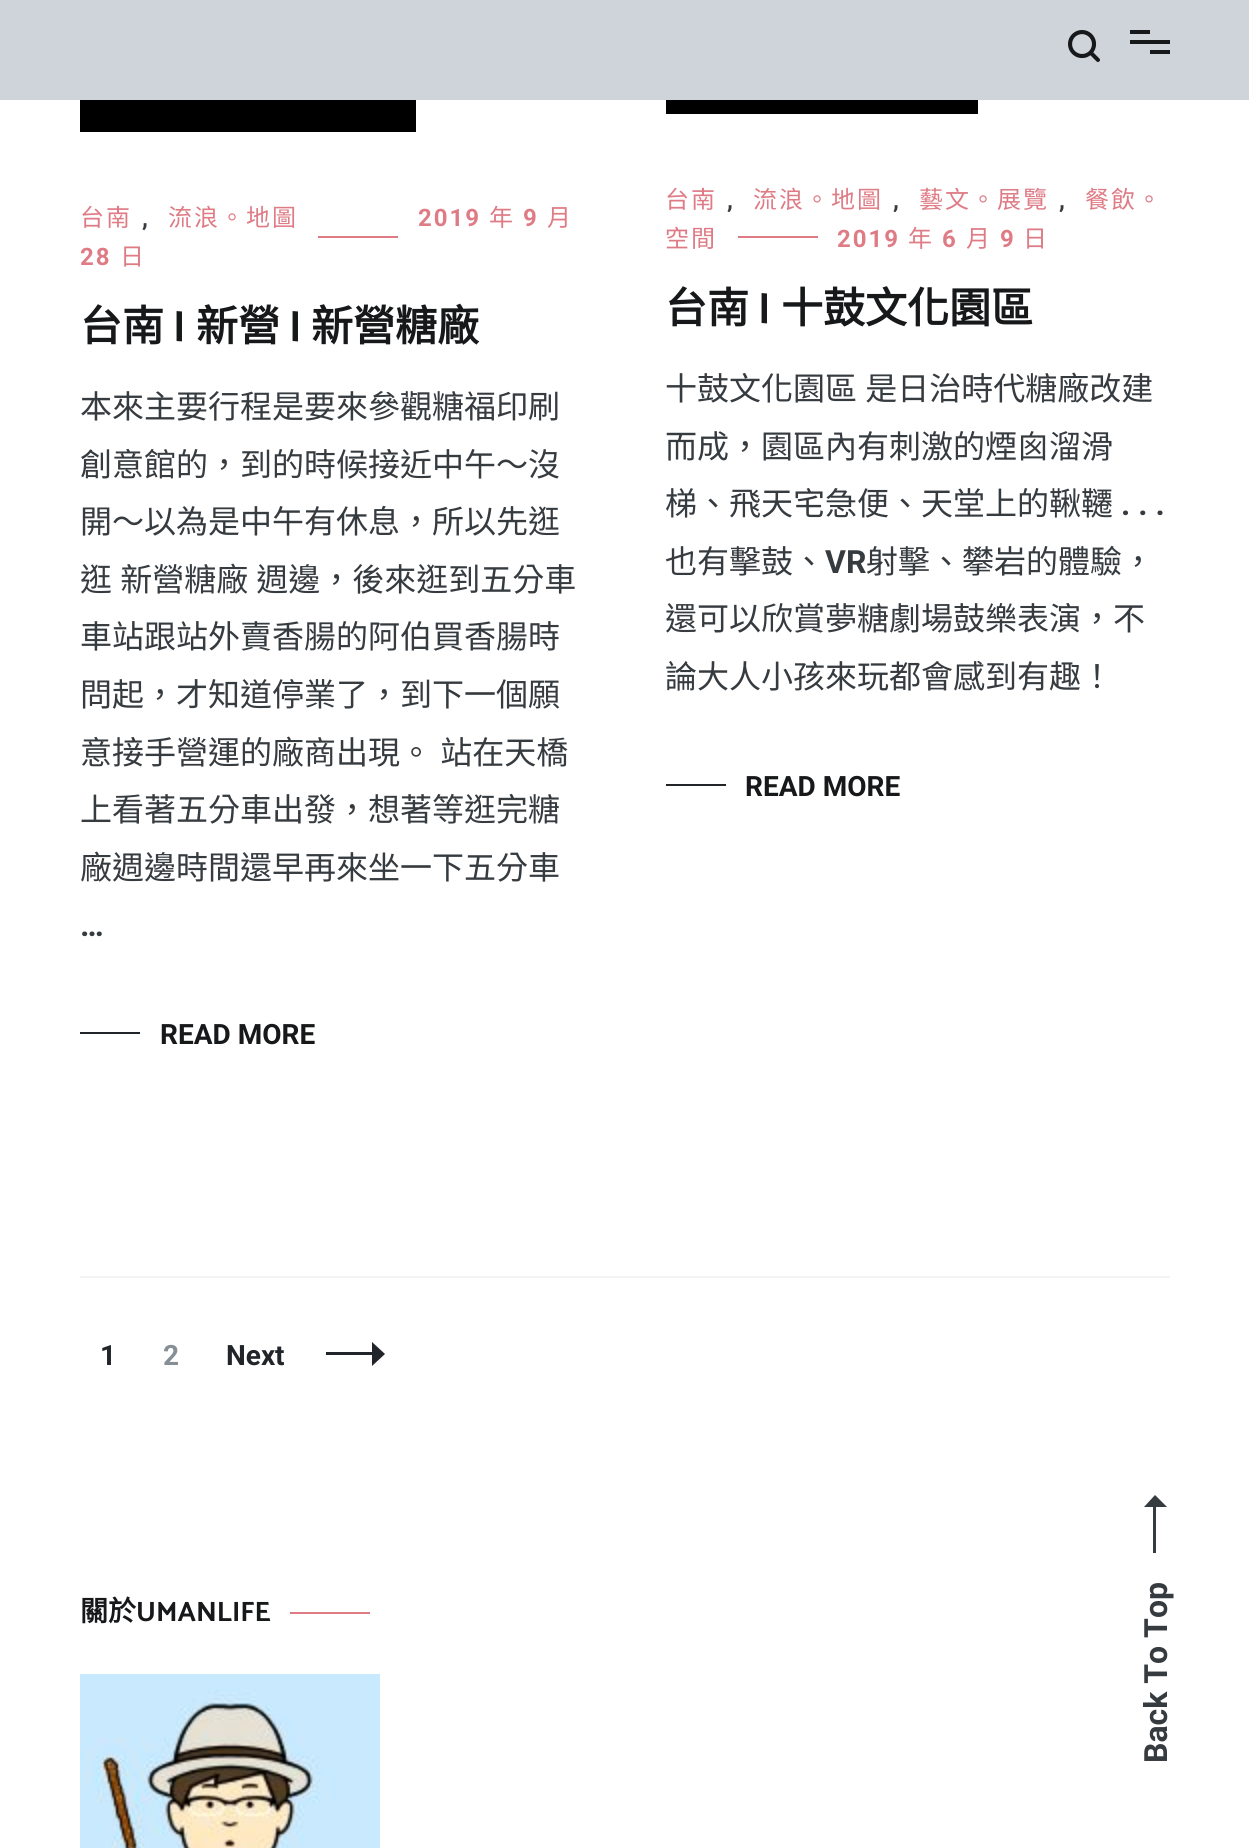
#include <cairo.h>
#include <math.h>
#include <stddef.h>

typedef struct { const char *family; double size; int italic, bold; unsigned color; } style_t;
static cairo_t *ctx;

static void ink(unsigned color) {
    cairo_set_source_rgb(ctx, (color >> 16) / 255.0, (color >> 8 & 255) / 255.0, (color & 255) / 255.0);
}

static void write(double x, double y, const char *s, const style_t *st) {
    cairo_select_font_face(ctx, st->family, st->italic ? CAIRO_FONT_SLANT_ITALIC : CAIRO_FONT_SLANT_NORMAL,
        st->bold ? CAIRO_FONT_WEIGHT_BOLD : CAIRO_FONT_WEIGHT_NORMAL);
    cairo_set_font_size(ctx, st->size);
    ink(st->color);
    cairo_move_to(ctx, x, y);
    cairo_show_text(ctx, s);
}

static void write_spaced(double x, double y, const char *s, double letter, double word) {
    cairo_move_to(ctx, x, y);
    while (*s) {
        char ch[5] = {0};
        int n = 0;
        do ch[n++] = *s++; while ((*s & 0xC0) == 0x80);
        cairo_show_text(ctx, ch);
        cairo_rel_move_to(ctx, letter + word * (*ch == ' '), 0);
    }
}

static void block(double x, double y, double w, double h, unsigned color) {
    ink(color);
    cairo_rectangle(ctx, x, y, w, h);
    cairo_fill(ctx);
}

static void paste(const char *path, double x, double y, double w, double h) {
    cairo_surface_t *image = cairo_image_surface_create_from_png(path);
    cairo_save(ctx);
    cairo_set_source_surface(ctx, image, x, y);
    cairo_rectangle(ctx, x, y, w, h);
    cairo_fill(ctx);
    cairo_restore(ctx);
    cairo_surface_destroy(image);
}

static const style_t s1 = {"Noto Sans CJK TC", 42, 0, 1, 0x16181a};
static const style_t s2 = {"Catamaran", 42, 0, 1, 0x16181a};
static const style_t s3 = {"Noto Sans CJK TC", 32, 0, 0, 0x363b40};
static const style_t s4 = {"Roboto", 32, 0, 1, 0x363b40};
static const style_t s5 = {"Roboto", 28, 0, 1, 0x16181a};
static const style_t s6 = {"Roboto", 28, 0, 1, 0x212529};
static const style_t s7 = {"Roboto", 28, 0, 1, 0x868e96};
static const style_t s8 = {"Noto Sans CJK TC", 28, 0, 1, 0x16181a};
static const style_t s9 = {"Catamaran", 28, 0, 1, 0x16181a};

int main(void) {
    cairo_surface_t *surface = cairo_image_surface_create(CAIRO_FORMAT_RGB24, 1249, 1848);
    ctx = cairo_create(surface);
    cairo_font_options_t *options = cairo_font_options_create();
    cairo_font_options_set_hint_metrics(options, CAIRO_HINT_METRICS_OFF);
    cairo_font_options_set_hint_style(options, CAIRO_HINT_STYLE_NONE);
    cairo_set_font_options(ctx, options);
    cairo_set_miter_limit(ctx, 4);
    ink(0xffffff);
    cairo_paint(ctx);
    block(0, 0, 1249, 100, 0xced4da);
    paste("pic1.png", 1068, 30, 32, 32);
    block(1130, 30, 20, 4, 0x16181a);
    block(1130, 40, 40, 4, 0x16181a);
    block(1150, 50, 20, 4, 0x16181a);
    block(80, 100, 336, 32, 0x000000);
    cairo_select_font_face(ctx, "Roboto", CAIRO_FONT_SLANT_NORMAL, CAIRO_FONT_WEIGHT_BOLD);
    cairo_set_font_size(ctx, 24);
    ink(0xde7b85);
    write_spaced(418, 226, "2019", 2, 0);
    cairo_select_font_face(ctx, "Noto Sans CJK TC", CAIRO_FONT_SLANT_NORMAL, CAIRO_FONT_WEIGHT_NORMAL);
    write_spaced(489, 226, "年", 2, 0);
    cairo_select_font_face(ctx, "Roboto", CAIRO_FONT_SLANT_NORMAL, CAIRO_FONT_WEIGHT_BOLD);
    write_spaced(523, 226, "9", 2, 0);
    cairo_select_font_face(ctx, "Noto Sans CJK TC", CAIRO_FONT_SLANT_NORMAL, CAIRO_FONT_WEIGHT_NORMAL);
    write_spaced(547, 226, "月", 2, 0);
    block(318, 236, 80, 2, 0xde7b85);
    cairo_select_font_face(ctx, "Roboto", CAIRO_FONT_SLANT_NORMAL, CAIRO_FONT_WEIGHT_BOLD);
    write_spaced(80, 265, "28", 2, 0);
    cairo_select_font_face(ctx, "Noto Sans CJK TC", CAIRO_FONT_SLANT_NORMAL, CAIRO_FONT_WEIGHT_NORMAL);
    write_spaced(120, 265, "日", 2, 0);
    write_spaced(80, 226, "台南", 2, 0);
    cairo_select_font_face(ctx, "Roboto", CAIRO_FONT_SLANT_NORMAL, CAIRO_FONT_WEIGHT_BOLD);
    ink(0x363b40);
    write_spaced(142, 226, ",", 2, 0);
    cairo_select_font_face(ctx, "Noto Sans CJK TC", CAIRO_FONT_SLANT_NORMAL, CAIRO_FONT_WEIGHT_NORMAL);
    ink(0xde7b85);
    write_spaced(168, 226, "流浪。地圖", 2, 0);
    write(80, 341, "台南", &s1);
    write(173, 341, "|", &s2);
    write(196, 341, "新營", &s1);
    write(289, 341, "|", &s2);
    write(311, 341, "新營糖廠", &s1);
    write(80, 418, "本來主要行程是要來參觀糖福印刷", &s3);
    write(80, 476, "創意館的，到的時候接近中午～沒", &s3);
    write(80, 533, "開～以為是中午有休息，所以先逛", &s3);
    write_spaced(80, 591, "逛 新營糖廠 週邊，後來逛到五分車", 0, 1);
    write(80, 648, "車站跟站外賣香腸的阿伯買香腸時", &s3);
    write(80, 706, "問起，才知道停業了，到下一個願", &s3);
    write_spaced(80, 764, "意接手營運的廠商出現。 站在天橋", 0, 1);
    write(80, 821, "上看著五分車出發，想著等逛完糖", &s3);
    write(80, 879, "廠週邊時間還早再來坐一下五分車", &s3);
    write(80, 936, "…", &s4);
    block(80, 1032, 60, 2, 0x212529);
    write(160, 1044, "READ MORE", &s5);
    block(666, 100, 312, 14, 0x000000);
    cairo_select_font_face(ctx, "Noto Sans CJK TC", CAIRO_FONT_SLANT_NORMAL, CAIRO_FONT_WEIGHT_NORMAL);
    cairo_set_font_size(ctx, 24);
    ink(0xde7b85);
    write_spaced(665, 208, "台南", 2, 0);
    cairo_select_font_face(ctx, "Roboto", CAIRO_FONT_SLANT_NORMAL, CAIRO_FONT_WEIGHT_BOLD);
    ink(0x363b40);
    write_spaced(727, 208, ",", 2, 0);
    cairo_select_font_face(ctx, "Noto Sans CJK TC", CAIRO_FONT_SLANT_NORMAL, CAIRO_FONT_WEIGHT_NORMAL);
    ink(0xde7b85);
    write_spaced(753, 208, "流浪。地圖", 2, 0);
    cairo_select_font_face(ctx, "Roboto", CAIRO_FONT_SLANT_NORMAL, CAIRO_FONT_WEIGHT_BOLD);
    ink(0x363b40);
    write_spaced(893, 208, ",", 2, 0);
    cairo_select_font_face(ctx, "Noto Sans CJK TC", CAIRO_FONT_SLANT_NORMAL, CAIRO_FONT_WEIGHT_NORMAL);
    ink(0xde7b85);
    write_spaced(919, 208, "藝文。展覽", 2, 0);
    cairo_select_font_face(ctx, "Roboto", CAIRO_FONT_SLANT_NORMAL, CAIRO_FONT_WEIGHT_BOLD);
    ink(0x363b40);
    write_spaced(1059, 208, ",", 2, 0);
    cairo_select_font_face(ctx, "Noto Sans CJK TC", CAIRO_FONT_SLANT_NORMAL, CAIRO_FONT_WEIGHT_NORMAL);
    ink(0xde7b85);
    write_spaced(1085, 208, "餐飲。", 2, 0);
    write_spaced(665, 247, "空間", 2, 0);
    block(738, 236, 80, 2, 0xde7b85);
    cairo_select_font_face(ctx, "Roboto", CAIRO_FONT_SLANT_NORMAL, CAIRO_FONT_WEIGHT_BOLD);
    write_spaced(837, 247, "2019", 2, 0);
    cairo_select_font_face(ctx, "Noto Sans CJK TC", CAIRO_FONT_SLANT_NORMAL, CAIRO_FONT_WEIGHT_NORMAL);
    write_spaced(908, 247, "年", 2, 0);
    cairo_select_font_face(ctx, "Roboto", CAIRO_FONT_SLANT_NORMAL, CAIRO_FONT_WEIGHT_BOLD);
    write_spaced(942, 247, "6", 2, 0);
    cairo_select_font_face(ctx, "Noto Sans CJK TC", CAIRO_FONT_SLANT_NORMAL, CAIRO_FONT_WEIGHT_NORMAL);
    write_spaced(966, 247, "月", 2, 0);
    cairo_select_font_face(ctx, "Roboto", CAIRO_FONT_SLANT_NORMAL, CAIRO_FONT_WEIGHT_BOLD);
    write_spaced(1000, 247, "9", 2, 0);
    cairo_select_font_face(ctx, "Noto Sans CJK TC", CAIRO_FONT_SLANT_NORMAL, CAIRO_FONT_WEIGHT_NORMAL);
    write_spaced(1023, 247, "日", 2, 0);
    write(665, 323, "台南", &s1);
    write(758, 323, "|", &s2);
    write(781, 323, "十鼓文化園區", &s1);
    cairo_select_font_face(ctx, "Noto Sans CJK TC", CAIRO_FONT_SLANT_NORMAL, CAIRO_FONT_WEIGHT_NORMAL);
    cairo_set_font_size(ctx, 32);
    ink(0x363b40);
    write_spaced(665, 400, "十鼓文化園區 是日治時代糖廠改建", 0, 1);
    write(665, 458, "而成，園區內有刺激的煙囪溜滑", &s3);
    write(665, 515, "梯、飛天宅急便、天堂上的鞦韆", &s3);
    write(1121, 515, ". . .", &s4);
    write(665, 573, "也有擊鼓、", &s3);
    write(825, 573, "VR", &s4);
    write(866, 573, "射擊、攀岩的體驗，", &s3);
    write(665, 630, "還可以欣賞夢糖劇場鼓樂表演，不", &s3);
    write(665, 688, "論大人小孩來玩都會感到有趣！", &s3);
    block(666, 784, 60, 2, 0x212529);
    write(745, 796, "READ MORE", &s5);
    block(80, 1276, 1090, 2, 0xf1f3f5);
    write(100, 1365, "1", &s6);
    write(163, 1365, "2", &s7);
    write(226, 1365, "Next", &s6);
    cairo_new_path(ctx);
    cairo_move_to(ctx, 385, 1354);
    cairo_line_to(ctx, 372, 1366);
    cairo_line_to(ctx, 372, 1342);
    cairo_close_path(ctx);
    cairo_move_to(ctx, 326, 1352);
    cairo_line_to(ctx, 373, 1352);
    cairo_line_to(ctx, 373, 1355);
    cairo_line_to(ctx, 326, 1355);
    cairo_close_path(ctx);
    cairo_fill(ctx);
    write(80, 1621, "關於", &s8);
    write(136, 1621, "UMANLIFE", &s9);
    block(290, 1612, 80, 2, 0xde7b85);
    paste("pic2.png", 80, 1674, 300, 174);
    ink(0x363b40);
    cairo_new_path(ctx);
    cairo_move_to(ctx, 1155, 1495);
    cairo_line_to(ctx, 1167, 1507);
    cairo_line_to(ctx, 1144, 1507);
    cairo_close_path(ctx);
    cairo_move_to(ctx, 1153, 1553);
    cairo_line_to(ctx, 1153, 1506);
    cairo_line_to(ctx, 1156, 1506);
    cairo_line_to(ctx, 1156, 1553);
    cairo_close_path(ctx);
    cairo_fill(ctx);
    cairo_save(ctx);
    cairo_translate(ctx, 1167, 1763);
    cairo_rotate(ctx, -90 * M_PI / 180);
    write(0, 0, "Back To Top", &s4);
    cairo_restore(ctx);
    cairo_surface_write_to_png(surface, "screenshot.png");
    cairo_font_options_destroy(options);
    cairo_destroy(ctx);
    cairo_surface_destroy(surface);
    return 0;
}
